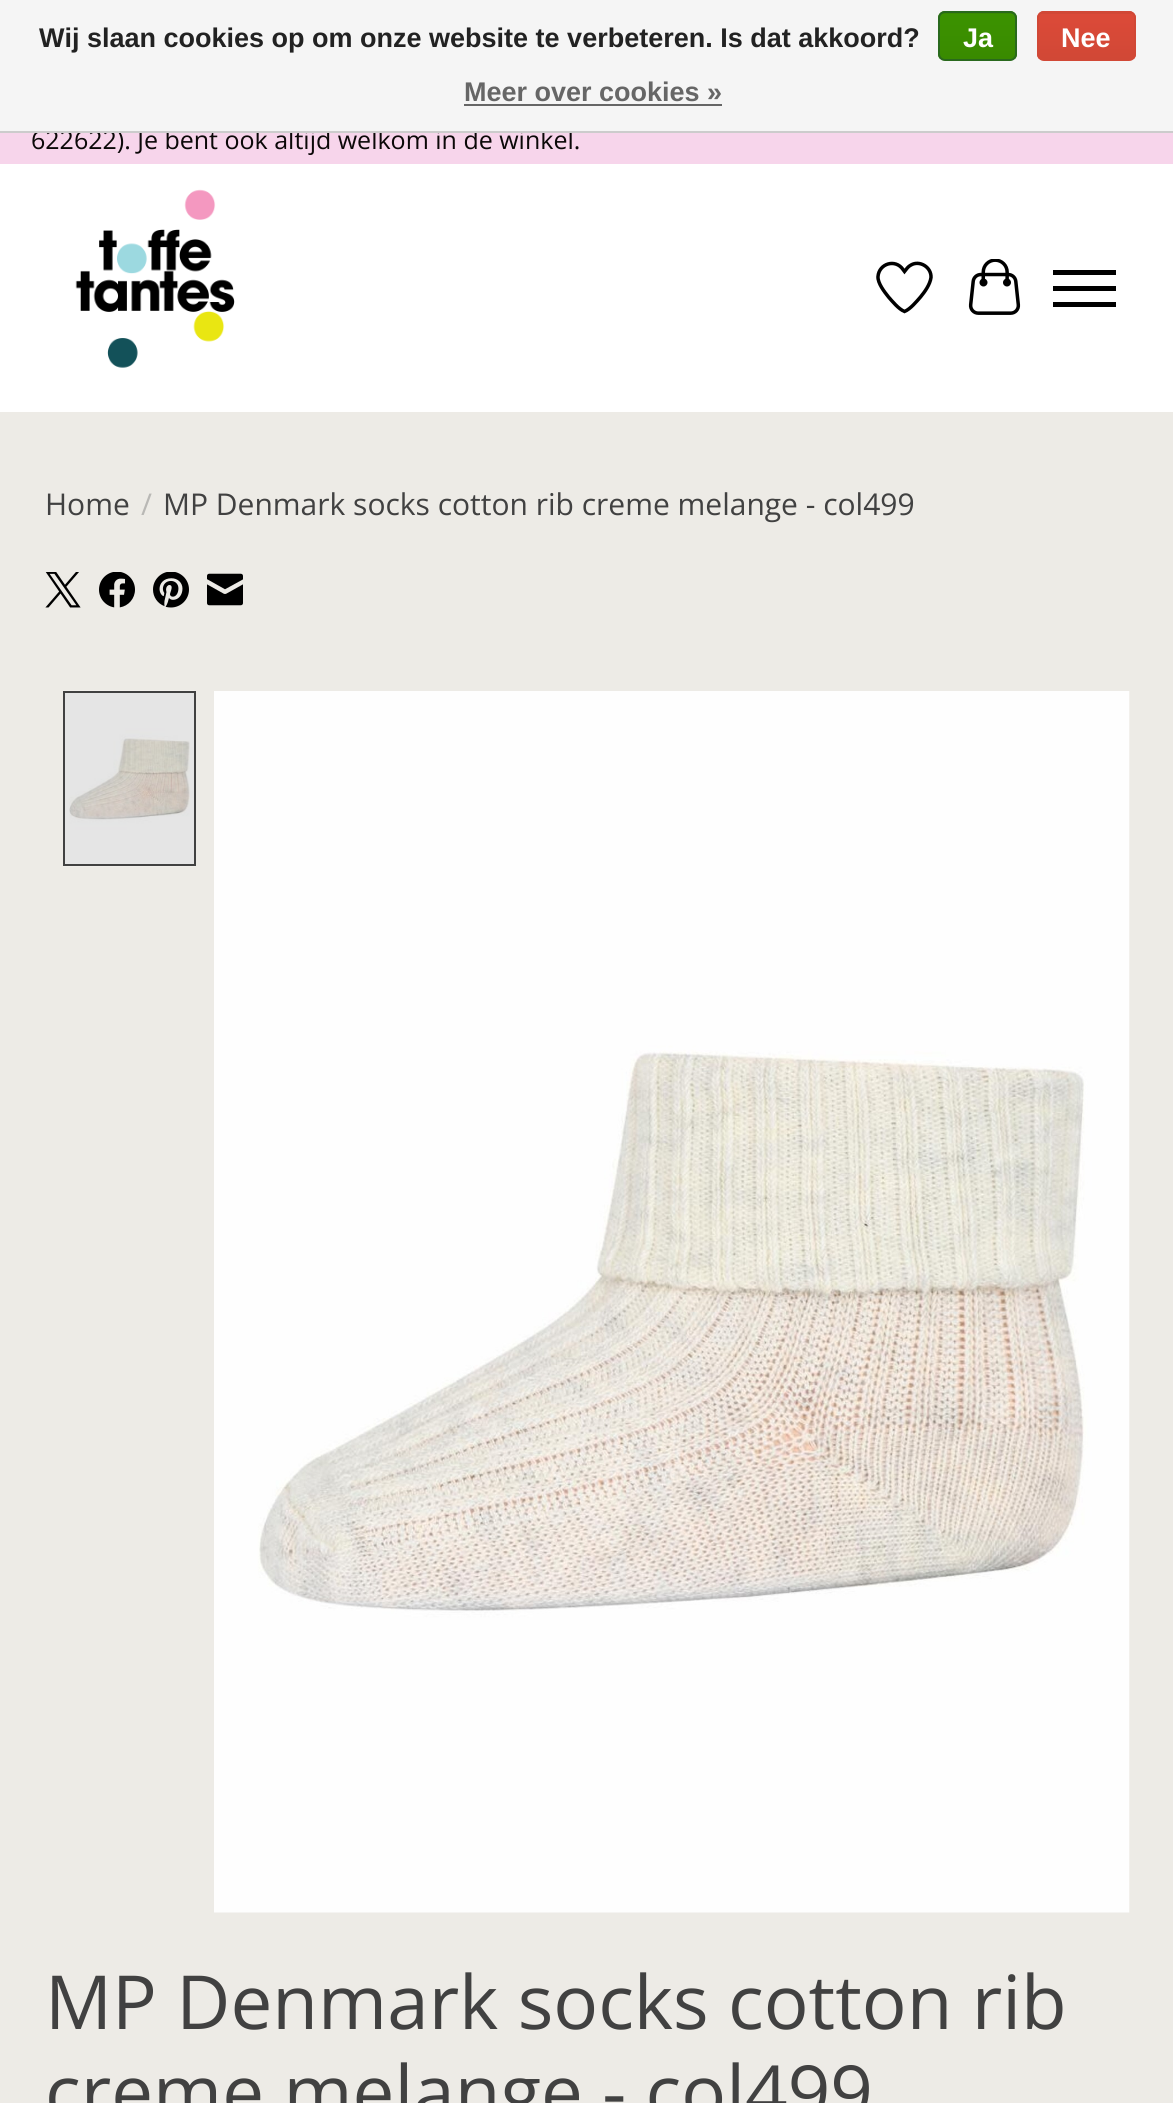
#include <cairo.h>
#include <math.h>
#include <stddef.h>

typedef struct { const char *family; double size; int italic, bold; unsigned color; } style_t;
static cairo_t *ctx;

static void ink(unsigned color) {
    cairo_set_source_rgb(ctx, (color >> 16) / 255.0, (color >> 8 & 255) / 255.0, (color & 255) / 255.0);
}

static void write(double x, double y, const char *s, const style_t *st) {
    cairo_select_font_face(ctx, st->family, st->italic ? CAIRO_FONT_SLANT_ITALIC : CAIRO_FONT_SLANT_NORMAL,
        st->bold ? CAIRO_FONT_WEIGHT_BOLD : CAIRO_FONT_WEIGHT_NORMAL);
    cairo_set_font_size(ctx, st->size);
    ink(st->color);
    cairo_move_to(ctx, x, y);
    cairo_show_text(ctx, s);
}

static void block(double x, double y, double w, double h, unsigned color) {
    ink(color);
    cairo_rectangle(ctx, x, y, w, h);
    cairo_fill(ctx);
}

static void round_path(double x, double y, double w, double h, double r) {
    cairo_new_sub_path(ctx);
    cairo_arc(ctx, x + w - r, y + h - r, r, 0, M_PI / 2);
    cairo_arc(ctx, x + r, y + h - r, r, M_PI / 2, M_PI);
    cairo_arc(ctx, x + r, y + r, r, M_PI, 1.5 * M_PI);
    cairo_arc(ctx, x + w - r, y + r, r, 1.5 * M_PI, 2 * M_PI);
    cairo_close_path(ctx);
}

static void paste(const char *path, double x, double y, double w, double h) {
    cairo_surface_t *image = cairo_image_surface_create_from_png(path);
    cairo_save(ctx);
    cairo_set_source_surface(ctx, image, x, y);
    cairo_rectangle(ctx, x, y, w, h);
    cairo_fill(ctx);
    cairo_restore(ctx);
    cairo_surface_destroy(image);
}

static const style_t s1 = {"Open Sans", 25, 0, 0, 0x0b0808};
static const style_t s2 = {"Liberation Sans", 27, 0, 1, 0x222222};
static const style_t s3 = {"Liberation Sans", 27, 0, 1, 0xffffff};
static const style_t s4 = {"Liberation Sans", 27, 0, 1, 0x666666};
static const style_t s5 = {"Open Sans", 30, 0, 0, 0x414141};
static const style_t s6 = {"Open Sans", 30, 0, 0, 0xb9b8b5};
static const style_t s7 = {"Open Sans", 74.6, 0, 0, 0x414141};

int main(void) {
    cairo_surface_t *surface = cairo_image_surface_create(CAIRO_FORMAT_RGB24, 1173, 2103);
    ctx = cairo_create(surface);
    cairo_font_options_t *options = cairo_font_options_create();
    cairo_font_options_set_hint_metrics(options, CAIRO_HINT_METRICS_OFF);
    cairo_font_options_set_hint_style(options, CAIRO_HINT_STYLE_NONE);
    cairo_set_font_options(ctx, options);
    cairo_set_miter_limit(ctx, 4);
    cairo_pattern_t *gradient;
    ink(0xedebe6);
    cairo_paint(ctx);
    block(0, 133, 1173, 31, 0xf7d5eb);
    write(31, 149, "622622). Je bent ook altijd welkom in de winkel.", &s1);
    block(0, 0, 1173, 131, 0xf5f5f5);
    block(0, 131, 1173, 2, 0xcccccc);
    write(39, 47, "Wij slaan cookies op om onze website te verbeteren. Is dat akkoord?", &s2);
    cairo_save(ctx);
    round_path(938, 11, 79, 50, 7);
    cairo_clip(ctx);
    gradient = cairo_pattern_create_linear(978, -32, 978, 14);
    cairo_pattern_add_color_stop_rgba(gradient, 0, 0.235, 0.576, 0, 1);
    cairo_pattern_add_color_stop_rgba(gradient, 1, 0.224, 0.541, 0, 1);
    cairo_set_source(ctx, gradient);
    cairo_pattern_destroy(gradient);
    cairo_rectangle(ctx, 938, 11, 79, 3);
    cairo_fill(ctx);
    gradient = cairo_pattern_create_linear(978, 13, 978, 59);
    cairo_pattern_add_color_stop_rgba(gradient, 0, 0.235, 0.576, 0, 1);
    cairo_pattern_add_color_stop_rgba(gradient, 1, 0.224, 0.541, 0, 1);
    cairo_set_source(ctx, gradient);
    cairo_pattern_destroy(gradient);
    cairo_rectangle(ctx, 938, 14, 79, 45);
    cairo_fill(ctx);
    cairo_restore(ctx);
    round_path(939, 12, 77, 48, 6);
    ink(0x29691d);
    cairo_stroke(ctx);
    write(963, 47, "Ja", &s3);
    cairo_save(ctx);
    round_path(1037, 11, 99, 50, 7);
    cairo_clip(ctx);
    gradient = cairo_pattern_create_linear(1087, -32, 1087, 14);
    cairo_pattern_add_color_stop_rgba(gradient, 0, 0.863, 0.29, 0.22, 1);
    cairo_pattern_add_color_stop_rgba(gradient, 1, 0.82, 0.282, 0.212, 1);
    cairo_set_source(ctx, gradient);
    cairo_pattern_destroy(gradient);
    cairo_rectangle(ctx, 1037, 11, 99, 3);
    cairo_fill(ctx);
    gradient = cairo_pattern_create_linear(1087, 13, 1087, 59);
    cairo_pattern_add_color_stop_rgba(gradient, 0, 0.863, 0.29, 0.22, 1);
    cairo_pattern_add_color_stop_rgba(gradient, 1, 0.82, 0.282, 0.212, 1);
    cairo_set_source(ctx, gradient);
    cairo_pattern_destroy(gradient);
    cairo_rectangle(ctx, 1037, 14, 99, 45);
    cairo_fill(ctx);
    cairo_restore(ctx);
    round_path(1038, 12, 97, 48, 6);
    ink(0xd14836);
    cairo_stroke(ctx);
    write(1061, 47, "Nee", &s3);
    write(464, 101, "Meer over cookies »", &s4);
    block(464, 104, 258, 2, 0x666666);
    block(0, 164, 1173, 248, 0xffffff);
    paste("pic1.png", 75, 189, 160, 179);
    cairo_new_path(ctx);
    cairo_move_to(ctx, 903, 269.5);
    cairo_line_to(ctx, 904.5, 271.5);
    cairo_curve_to(ctx, 906.5, 269, 908, 266.5, 911, 265);
    cairo_curve_to(ctx, 919.5, 260, 931.5, 267, 931, 277.5);
    cairo_curve_to(ctx, 930, 284.5, 925, 291.5, 920.5, 297);
    cairo_curve_to(ctx, 916.5, 301.5, 910.5, 309, 904.5, 311.5);
    cairo_curve_to(ctx, 898.5, 309, 892.5, 301.5, 888.5, 297);
    cairo_curve_to(ctx, 884.5, 292, 877.5, 283, 878, 276.5);
    cairo_curve_to(ctx, 879, 263.5, 895.5, 258.5, 903, 269.5);
    cairo_close_path(ctx);
    ink(0x000000);
    cairo_set_line_width(ctx, 3.5);
    cairo_stroke(ctx);
    paste("pic2.png", 968, 259, 53, 56);
    block(1053, 286, 63, 5, 0x000000);
    block(1053, 270, 63, 5, 0x000000);
    block(1053, 302, 63, 5, 0x000000);
    write(45, 515, "Home", &s5);
    write(141, 515, "/", &s6);
    write(163, 515, "MP Denmark socks cotton rib creme melange - col499", &s5);
    paste("pic3.png", 45, 572, 36, 36);
    paste("pic4.png", 99, 572, 36, 36);
    paste("pic5.png", 153, 572, 36, 36);
    paste("pic6.png", 207, 573, 36, 33);
    paste("pic7.png", 63, 690, 133, 177);
    cairo_rectangle(ctx, 64, 692, 131, 173);
    cairo_set_line_width(ctx, 2);
    cairo_stroke(ctx);
    paste("pic8.png", 214, 691, 916, 1222);
    write(45, 2029, "MP Denmark socks cotton rib", &s7);
    write(45, 2119, "creme melange - col499", &s7);
    cairo_surface_write_to_png(surface, "screenshot.png");
    cairo_font_options_destroy(options);
    cairo_destroy(ctx);
    cairo_surface_destroy(surface);
    return 0;
}
